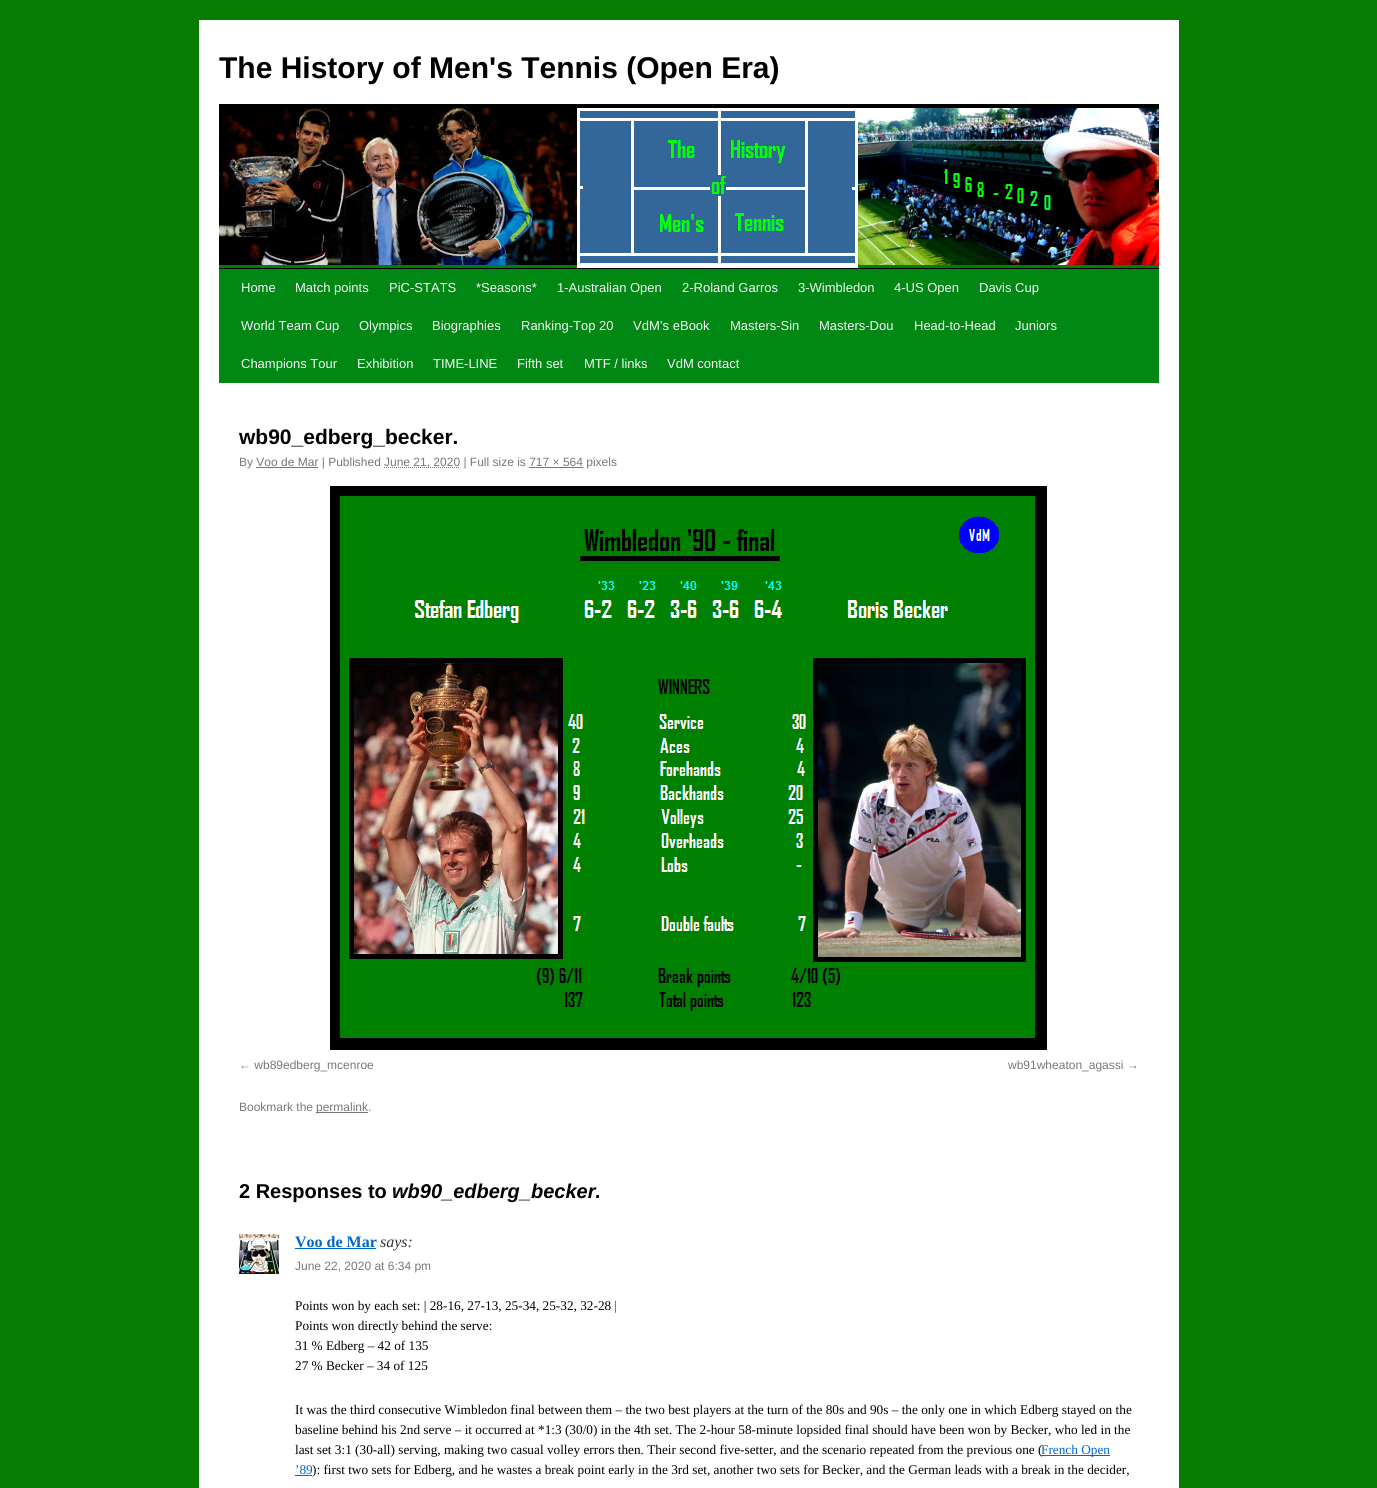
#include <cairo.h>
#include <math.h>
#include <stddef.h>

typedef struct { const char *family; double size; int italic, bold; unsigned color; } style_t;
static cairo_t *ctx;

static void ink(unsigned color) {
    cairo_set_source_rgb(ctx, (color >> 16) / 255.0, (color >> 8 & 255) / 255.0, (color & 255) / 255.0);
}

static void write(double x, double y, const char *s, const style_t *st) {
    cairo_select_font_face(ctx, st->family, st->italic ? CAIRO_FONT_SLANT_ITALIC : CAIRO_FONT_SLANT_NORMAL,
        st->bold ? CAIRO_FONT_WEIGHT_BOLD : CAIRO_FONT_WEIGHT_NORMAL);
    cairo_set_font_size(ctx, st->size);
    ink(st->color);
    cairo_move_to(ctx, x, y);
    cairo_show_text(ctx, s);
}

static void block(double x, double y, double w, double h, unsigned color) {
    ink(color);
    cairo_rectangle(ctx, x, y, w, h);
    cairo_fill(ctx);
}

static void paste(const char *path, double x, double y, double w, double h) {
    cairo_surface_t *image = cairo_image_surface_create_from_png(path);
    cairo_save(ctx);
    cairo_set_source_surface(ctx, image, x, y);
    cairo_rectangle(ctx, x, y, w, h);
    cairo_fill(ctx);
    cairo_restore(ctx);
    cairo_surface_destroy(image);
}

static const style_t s1 = {"Liberation Sans", 30, 0, 1, 0x000000};
static const style_t s2 = {"Liberation Sans", 13, 0, 0, 0xf8f8f8};
static const style_t s3 = {"Liberation Sans", 21, 0, 1, 0x000000};
static const style_t s4 = {"Liberation Sans", 12, 0, 0, 0x777777};
static const style_t s5 = {"Liberation Sans", 20, 0, 1, 0x000000};
static const style_t s6 = {"Liberation Sans", 20, 1, 1, 0x000000};
static const style_t s7 = {"Liberation Serif", 16, 0, 1, 0x0066cc};
static const style_t s8 = {"Liberation Serif", 16, 1, 0, 0x333333};
static const style_t s9 = {"Liberation Serif", 13.28, 0, 0, 0x000000};
static const style_t s10 = {"Liberation Serif", 13.28, 0, 0, 0x0066cc};

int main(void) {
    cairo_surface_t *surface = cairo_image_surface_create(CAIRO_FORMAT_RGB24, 1377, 1488);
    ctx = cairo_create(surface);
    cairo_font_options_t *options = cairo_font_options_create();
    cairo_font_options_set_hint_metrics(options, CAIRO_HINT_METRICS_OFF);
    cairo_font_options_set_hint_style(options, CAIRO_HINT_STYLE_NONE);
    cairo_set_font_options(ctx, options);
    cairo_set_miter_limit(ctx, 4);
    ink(0x067c00);
    cairo_paint(ctx);
    block(199, 20, 980, 1468, 0xffffff);
    write(219, 78, "The History of Men's Tennis (Open Era)", &s1);
    block(219, 104, 940, 4, 0x000000);
    block(219, 268, 940, 1, 0x000000);
    paste("pic1.png", 219, 108, 940, 160);
    block(219, 269, 940, 114, 0x008714);
    write(241, 292, "Home", &s2);
    write(295, 292, "Match points", &s2);
    write(389, 292, "PiC-STATS", &s2);
    write(476, 292, "*Seasons*", &s2);
    write(557, 292, "1-Australian Open", &s2);
    write(682, 292, "2-Roland Garros", &s2);
    write(798, 292, "3-Wimbledon", &s2);
    write(894, 292, "4-US Open", &s2);
    write(979, 292, "Davis Cup", &s2);
    write(241, 330, "World Team Cup", &s2);
    write(359, 330, "Olympics", &s2);
    write(432, 330, "Biographies", &s2);
    write(521, 330, "Ranking-Top 20", &s2);
    write(633, 330, "VdM’s eBook", &s2);
    write(730, 330, "Masters-Sin", &s2);
    write(819, 330, "Masters-Dou", &s2);
    write(914, 330, "Head-to-Head", &s2);
    write(1015, 330, "Juniors", &s2);
    write(241, 368, "Champions Tour", &s2);
    write(357, 368, "Exhibition", &s2);
    write(433, 368, "TIME-LINE", &s2);
    write(517, 368, "Fifth set", &s2);
    write(584, 368, "MTF / links", &s2);
    write(667, 368, "VdM contact", &s2);
    write(239, 444, "wb90_edberg_becker.", &s3);
    write(239, 466, "By Voo de Mar | Published", &s4);
    cairo_new_path(ctx);
    cairo_move_to(ctx, 384, 467.5);
    cairo_line_to(ctx, 460, 467.5);
    cairo_set_line_width(ctx, 1);
    cairo_set_dash(ctx, (double[]){1, 1}, 2, 0);
    cairo_stroke(ctx);
    write(384, 466, "June 21, 2020 | Full size is 717 × 564 pixels", &s4);
    block(256, 467, 62, 1, 0x777777);
    block(529, 467, 54, 1, 0x777777);
    paste("pic2.png", 330, 486, 717, 564);
    write(239, 1069, "← wb89edberg_mcenroe", &s4);
    write(1008, 1069, "wb91wheaton_agassi →", &s4);
    write(239, 1111, "Bookmark the", &s4);
    block(316, 1112, 52, 1, 0x777777);
    write(316, 1111, "permalink.", &s4);
    write(239, 1198, "2 Responses to", &s5);
    write(392, 1198, "wb90_edberg_becker.", &s6);
    paste("pic3.png", 239, 1234, 40, 40);
    write(295, 1247, "Voo de Mar", &s7);
    block(295, 1248, 81, 1, 0x0066cc);
    write(380, 1247, "says:", &s8);
    write(295, 1270, "June 22, 2020 at 6:34 pm", &s4);
    write(295, 1310, "Points won by each set: | 28-16, 27-13, 25-34, 25-32, 32-28 |", &s9);
    write(295, 1330, "Points won directly behind the serve:", &s9);
    write(295, 1350, "31 % Edberg – 42 of 135", &s9);
    write(295, 1370, "27 % Becker – 34 of 125", &s9);
    write(295, 1414, "It was the third consecutive Wimbledon final between them – the two best players at the turn of the 80s and 90s – the only one in which Edberg stayed on the", &s9);
    write(295, 1434, "baseline behind his 2nd serve – it occurred at *1:3 (30/0) in the 4th set. The 2-hour 58-minute lopsided final should have been won by Becker, who led in the", &s9);
    write(295, 1454, "last set 3:1 (30-all) serving, making two casual volley errors then. Their second five-setter, and the scenario repeated from the previous one (", &s9);
    block(1041, 1455, 69, 1, 0x0066cc);
    write(1041, 1454, "French Open", &s10);
    write(295, 1474, "’89", &s10);
    block(295, 1475, 17, 1, 0x0066cc);
    write(312, 1474, "): first two sets for Edberg, and he wastes a break point early in the 3rd set, another two sets for Becker, and the German leads with a break in the decider,", &s9);
    cairo_surface_write_to_png(surface, "screenshot.png");
    cairo_font_options_destroy(options);
    cairo_destroy(ctx);
    cairo_surface_destroy(surface);
    return 0;
}
